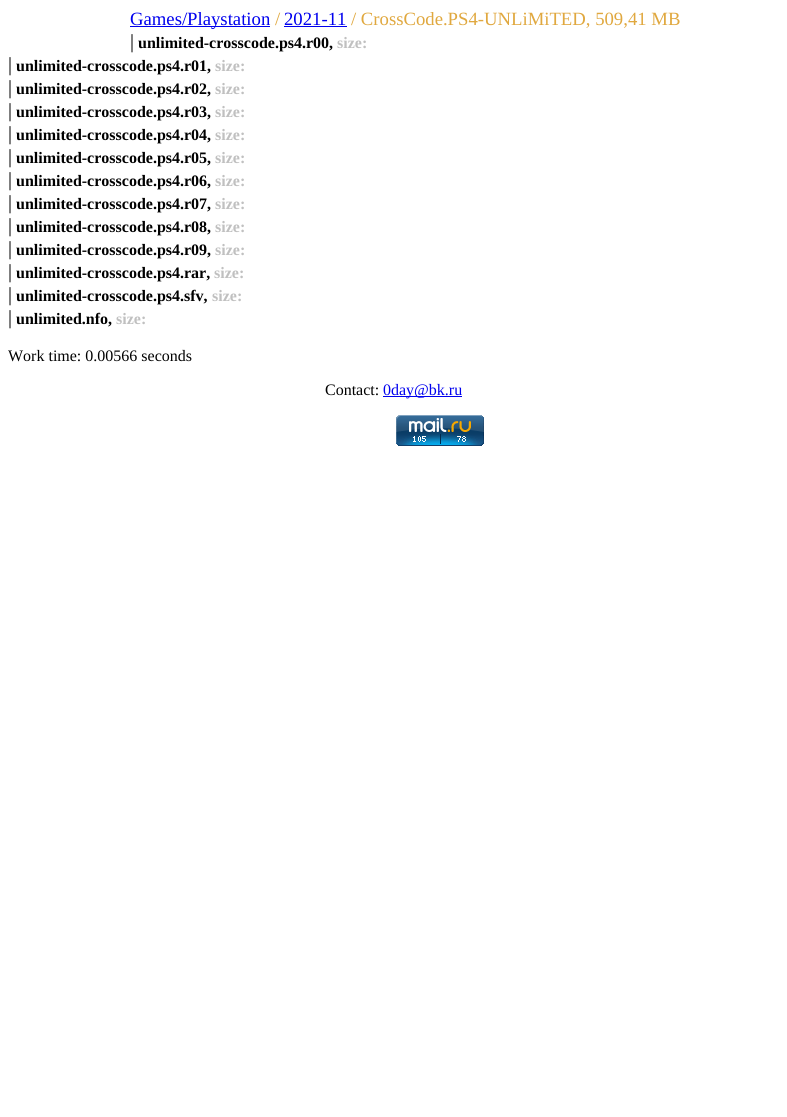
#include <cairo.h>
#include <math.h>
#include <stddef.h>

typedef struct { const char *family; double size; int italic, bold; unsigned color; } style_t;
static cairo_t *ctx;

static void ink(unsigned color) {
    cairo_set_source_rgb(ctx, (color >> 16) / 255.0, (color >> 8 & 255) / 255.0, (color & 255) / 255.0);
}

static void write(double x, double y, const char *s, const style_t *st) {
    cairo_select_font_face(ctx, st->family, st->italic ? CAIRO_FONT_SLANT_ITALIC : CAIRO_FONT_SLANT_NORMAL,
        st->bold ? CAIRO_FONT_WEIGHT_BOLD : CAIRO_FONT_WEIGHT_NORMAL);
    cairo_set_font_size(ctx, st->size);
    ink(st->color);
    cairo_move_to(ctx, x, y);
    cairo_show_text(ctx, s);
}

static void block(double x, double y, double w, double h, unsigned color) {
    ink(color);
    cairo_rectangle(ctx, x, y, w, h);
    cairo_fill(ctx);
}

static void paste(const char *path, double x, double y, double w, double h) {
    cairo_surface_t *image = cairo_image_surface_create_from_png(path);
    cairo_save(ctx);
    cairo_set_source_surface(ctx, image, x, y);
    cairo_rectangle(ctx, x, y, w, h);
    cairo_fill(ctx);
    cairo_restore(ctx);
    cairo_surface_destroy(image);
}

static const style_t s1 = {"Liberation Serif", 18.7, 0, 0, 0x0000ee};
static const style_t s2 = {"Liberation Serif", 18.7, 0, 0, 0xe0a83f};
static const style_t s3 = {"Liberation Serif", 20, 0, 0, 0x000000};
static const style_t s4 = {"Liberation Serif", 16, 0, 1, 0x000000};
static const style_t s5 = {"Liberation Serif", 16, 0, 1, 0xc0c0c0};
static const style_t s6 = {"Liberation Serif", 16, 0, 0, 0x000000};
static const style_t s7 = {"Liberation Serif", 16, 0, 0, 0x0000ee};

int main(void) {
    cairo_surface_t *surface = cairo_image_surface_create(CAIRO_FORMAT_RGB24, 787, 1117);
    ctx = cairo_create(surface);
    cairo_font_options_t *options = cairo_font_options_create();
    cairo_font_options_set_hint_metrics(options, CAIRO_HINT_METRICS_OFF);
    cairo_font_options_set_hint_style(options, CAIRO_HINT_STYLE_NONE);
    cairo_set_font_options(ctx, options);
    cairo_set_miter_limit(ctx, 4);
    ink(0xffffff);
    cairo_paint(ctx);
    block(130, 26, 140, 1, 0x0000ee);
    write(130, 25, "Games/Playstation", &s1);
    write(275, 25, "/", &s2);
    write(284, 25, "2021-11", &s1);
    block(284, 26, 63, 1, 0x0000ee);
    write(351, 25, "/ CrossCode.PS4-UNLiMiTED, 509,41 MB", &s2);
    write(130, 48, "|", &s3);
    write(138, 48, "unlimited-crosscode.ps4.r00,", &s4);
    write(337, 48, "size:", &s5);
    write(8, 71, "|", &s3);
    write(16, 71, "unlimited-crosscode.ps4.r01,", &s4);
    write(215, 71, "size:", &s5);
    write(8, 94, "|", &s3);
    write(16, 94, "unlimited-crosscode.ps4.r02,", &s4);
    write(215, 94, "size:", &s5);
    write(8, 117, "|", &s3);
    write(16, 117, "unlimited-crosscode.ps4.r03,", &s4);
    write(215, 117, "size:", &s5);
    write(8, 140, "|", &s3);
    write(16, 140, "unlimited-crosscode.ps4.r04,", &s4);
    write(215, 140, "size:", &s5);
    write(8, 163, "|", &s3);
    write(16, 163, "unlimited-crosscode.ps4.r05,", &s4);
    write(215, 163, "size:", &s5);
    write(8, 186, "|", &s3);
    write(16, 186, "unlimited-crosscode.ps4.r06,", &s4);
    write(215, 186, "size:", &s5);
    write(8, 209, "|", &s3);
    write(16, 209, "unlimited-crosscode.ps4.r07,", &s4);
    write(215, 209, "size:", &s5);
    write(8, 232, "|", &s3);
    write(16, 232, "unlimited-crosscode.ps4.r08,", &s4);
    write(215, 232, "size:", &s5);
    write(8, 255, "|", &s3);
    write(16, 255, "unlimited-crosscode.ps4.r09,", &s4);
    write(215, 255, "size:", &s5);
    write(8, 278, "|", &s3);
    write(16, 278, "unlimited-crosscode.ps4.rar,", &s4);
    write(214, 278, "size:", &s5);
    write(8, 301, "|", &s3);
    write(16, 301, "unlimited-crosscode.ps4.sfv,", &s4);
    write(212, 301, "size:", &s5);
    write(8, 324, "|", &s3);
    write(16, 324, "unlimited.nfo,", &s4);
    write(116, 324, "size:", &s5);
    write(8, 361, "Work time: 0.00566 seconds", &s6);
    write(325, 395, "Contact:", &s6);
    block(383, 396, 79, 1, 0x0000ee);
    write(383, 395, "0day@bk.ru", &s7);
    paste("pic1.png", 396, 415, 88, 31);
    cairo_surface_write_to_png(surface, "screenshot.png");
    cairo_font_options_destroy(options);
    cairo_destroy(ctx);
    cairo_surface_destroy(surface);
    return 0;
}
